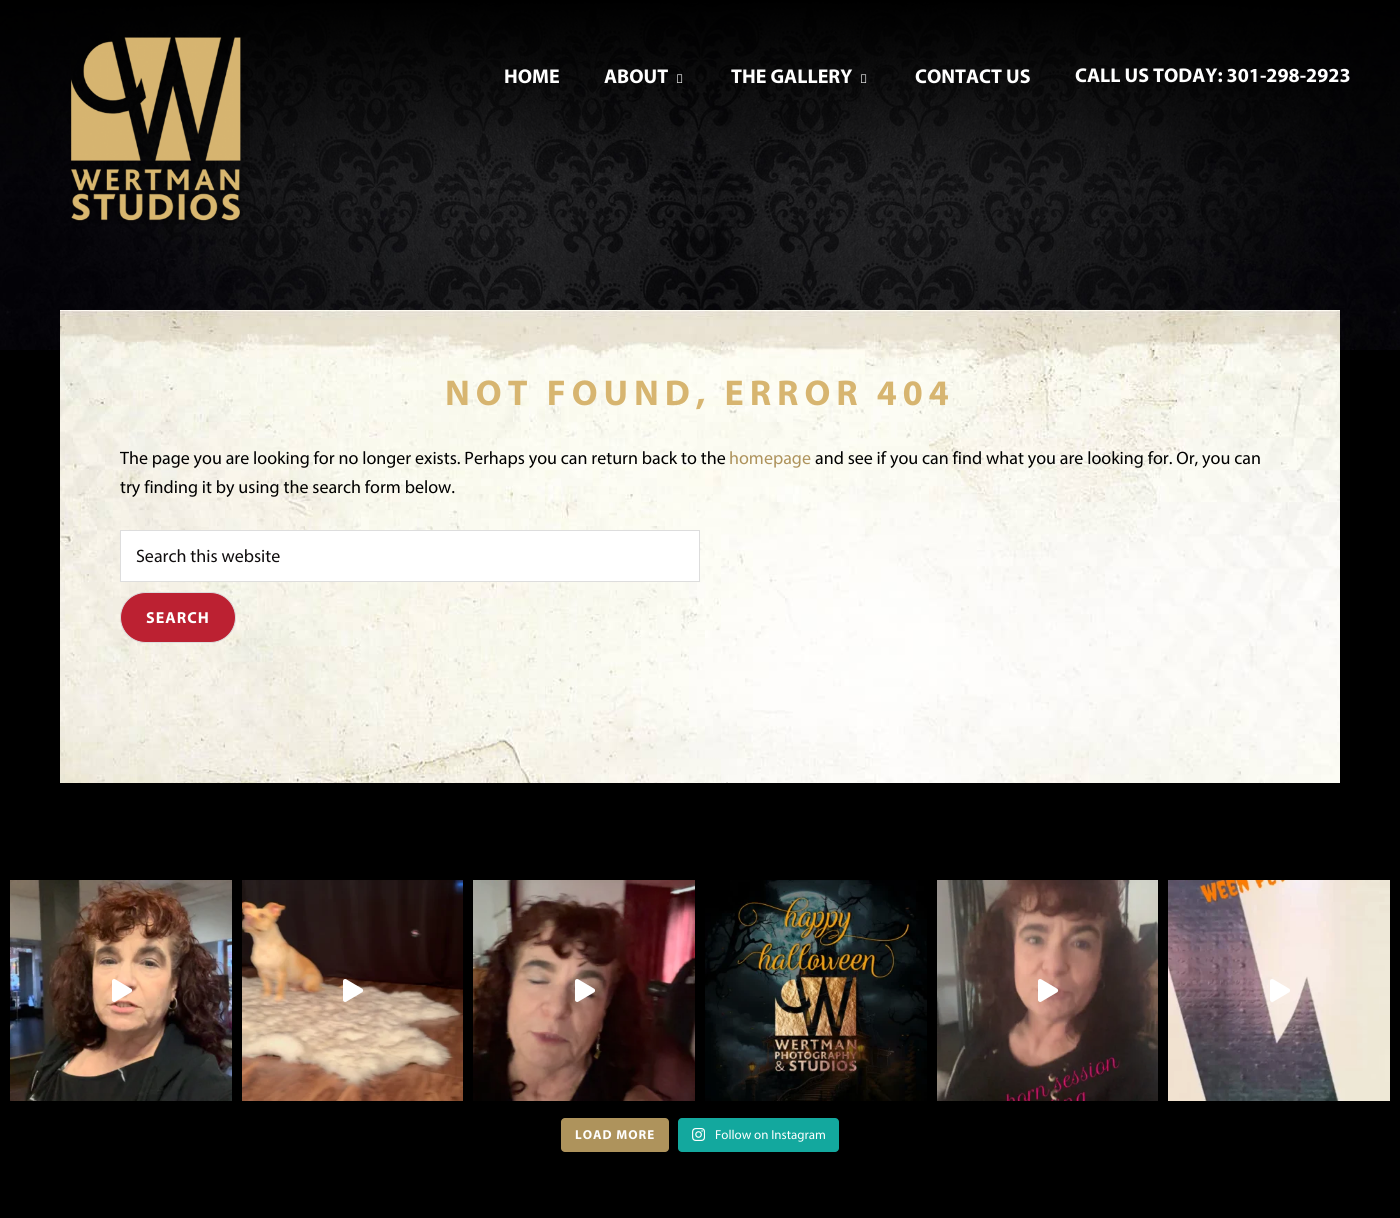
#include <cairo.h>
#include <math.h>
#include <stddef.h>

typedef struct { const char *family; double size; int italic, bold; unsigned color; } style_t;
static cairo_t *ctx;

static void ink(unsigned color) {
    cairo_set_source_rgb(ctx, (color >> 16) / 255.0, (color >> 8 & 255) / 255.0, (color & 255) / 255.0);
}

static void write(double x, double y, const char *s, const style_t *st) {
    cairo_select_font_face(ctx, st->family, st->italic ? CAIRO_FONT_SLANT_ITALIC : CAIRO_FONT_SLANT_NORMAL,
        st->bold ? CAIRO_FONT_WEIGHT_BOLD : CAIRO_FONT_WEIGHT_NORMAL);
    cairo_set_font_size(ctx, st->size);
    ink(st->color);
    cairo_move_to(ctx, x, y);
    cairo_show_text(ctx, s);
}

static void write_spaced(double x, double y, const char *s, double letter, double word) {
    cairo_move_to(ctx, x, y);
    while (*s) {
        char ch[5] = {0};
        int n = 0;
        do ch[n++] = *s++; while ((*s & 0xC0) == 0x80);
        cairo_show_text(ctx, ch);
        cairo_rel_move_to(ctx, letter + word * (*ch == ' '), 0);
    }
}

static void round_path(double x, double y, double w, double h, double r) {
    cairo_new_sub_path(ctx);
    cairo_arc(ctx, x + w - r, y + h - r, r, 0, M_PI / 2);
    cairo_arc(ctx, x + r, y + h - r, r, M_PI / 2, M_PI);
    cairo_arc(ctx, x + r, y + r, r, M_PI, 1.5 * M_PI);
    cairo_arc(ctx, x + w - r, y + r, r, 1.5 * M_PI, 2 * M_PI);
    cairo_close_path(ctx);
}

static void paste(const char *path, double x, double y, double w, double h) {
    cairo_surface_t *image = cairo_image_surface_create_from_png(path);
    cairo_save(ctx);
    cairo_set_source_surface(ctx, image, x, y);
    cairo_rectangle(ctx, x, y, w, h);
    cairo_fill(ctx);
    cairo_restore(ctx);
    cairo_surface_destroy(image);
}

static const style_t s1 = {"Myriad", 20, 0, 1, 0xffffff};
static const style_t s2 = {"Myriad", 18, 0, 0, 0x000000};
static const style_t s3 = {"Myriad", 18, 0, 0, 0xae935c};
static const style_t s4 = {"Myriad", 18, 0, 0, 0x100d0e};
static const style_t s5 = {"Myriad", 13, 0, 0, 0xffffff};

int main(void) {
    cairo_surface_t *surface = cairo_image_surface_create(CAIRO_FORMAT_RGB24, 1400, 1218);
    ctx = cairo_create(surface);
    cairo_font_options_t *options = cairo_font_options_create();
    cairo_font_options_set_hint_metrics(options, CAIRO_HINT_METRICS_OFF);
    cairo_font_options_set_hint_style(options, CAIRO_HINT_STYLE_NONE);
    cairo_set_font_options(ctx, options);
    cairo_set_miter_limit(ctx, 4);
    ink(0x000000);
    cairo_paint(ctx);
    paste("pic1.png", 0, 0, 1400, 350);
    paste("pic2.png", 71, 37, 179, 187);
    write(504, 83, "HOME", &s1);
    write(604, 83, "ABOUT", &s1);
    paste("pic3.png", 677, 74, 6, 9);
    write(731, 83, "THE GALLERY", &s1);
    paste("pic4.png", 861, 74, 6, 9);
    write(915, 83, "CONTACT US", &s1);
    write(1075, 82, "CALL US TODAY: 301-298-2923", &s1);
    paste("pic5.png", 60, 310, 1280, 473);
    cairo_set_font_size(ctx, 36);
    ink(0xd7b570);
    write_spaced(445, 405, "NOT FOUND, ERROR 404", 6, 0);
    write(120, 464, "The page you are looking for no longer exists. Perhaps you can return back to the", &s2);
    write(729, 464, "homepage", &s3);
    write(815, 464, "and see if you can find what you are looking for. Or, you can", &s2);
    write(120, 493, "try finding it by using the search form below.", &s2);
    ink(0xffffff);
    cairo_rectangle(ctx, 120.5, 530.5, 579, 51);
    cairo_fill_preserve(ctx);
    ink(0xdddddd);
    cairo_set_line_width(ctx, 1);
    cairo_stroke(ctx);
    write(136, 562, "Search this website", &s4);
    ink(0xbc2132);
    round_path(120.5, 592.5, 115, 50, 25);
    cairo_fill_preserve(ctx);
    ink(0xdddddd);
    cairo_stroke(ctx);
    cairo_select_font_face(ctx, "Myriad", CAIRO_FONT_SLANT_NORMAL, CAIRO_FONT_WEIGHT_BOLD);
    cairo_set_font_size(ctx, 16);
    ink(0xffffff);
    write_spaced(146, 623, "SEARCH", 1, 0);
    paste("pic6.png", 10, 880, 222, 221);
    paste("pic7.png", 112, 979, 20, 23);
    paste("pic8.png", 242, 880, 221, 221);
    paste("pic9.png", 343, 979, 21, 23);
    paste("pic10.png", 473, 880, 222, 221);
    paste("pic11.png", 575, 979, 20, 23);
    paste("pic12.png", 705, 880, 222, 221);
    paste("pic13.png", 937, 880, 221, 221);
    paste("pic14.png", 1038, 979, 21, 23);
    paste("pic15.png", 1168, 880, 222, 221);
    paste("pic16.png", 1270, 979, 20, 23);
    ink(0xae935c);
    round_path(561, 1118, 108, 34, 4);
    cairo_fill(ctx);
    cairo_set_font_size(ctx, 13);
    ink(0xffffff);
    write_spaced(575, 1139, "LOAD MORE", 1, 0);
    ink(0x13a89e);
    round_path(678, 1118, 161, 34, 4);
    cairo_fill(ctx);
    paste("pic17.png", 692, 1128, 13, 13);
    write(715, 1139, "Follow on Instagram", &s5);
    cairo_surface_write_to_png(surface, "screenshot.png");
    cairo_font_options_destroy(options);
    cairo_destroy(ctx);
    cairo_surface_destroy(surface);
    return 0;
}
